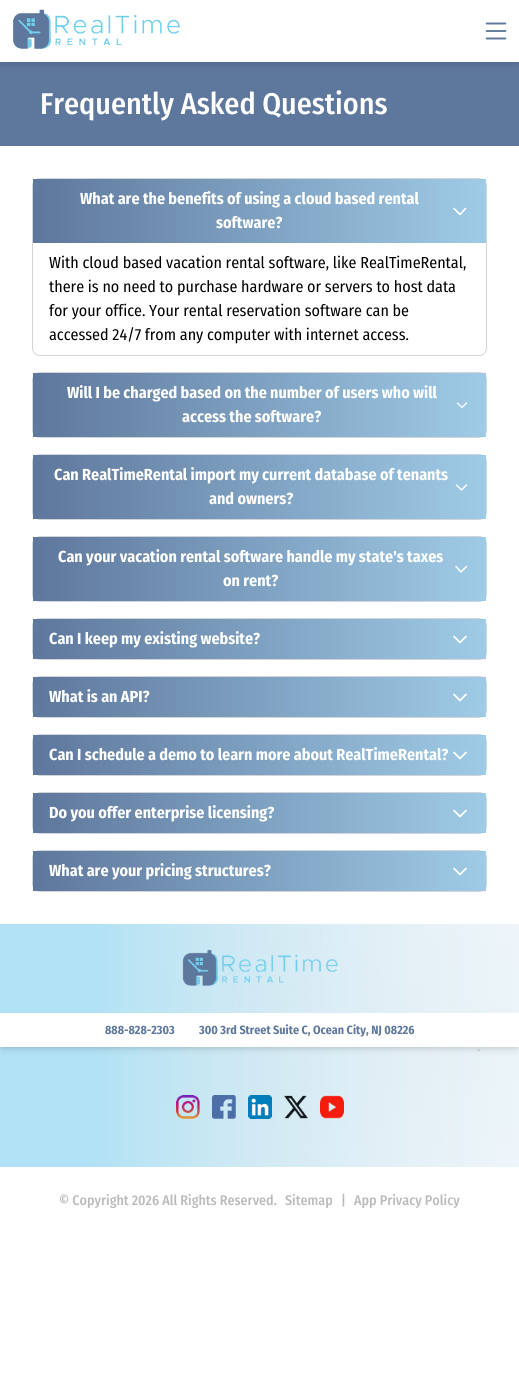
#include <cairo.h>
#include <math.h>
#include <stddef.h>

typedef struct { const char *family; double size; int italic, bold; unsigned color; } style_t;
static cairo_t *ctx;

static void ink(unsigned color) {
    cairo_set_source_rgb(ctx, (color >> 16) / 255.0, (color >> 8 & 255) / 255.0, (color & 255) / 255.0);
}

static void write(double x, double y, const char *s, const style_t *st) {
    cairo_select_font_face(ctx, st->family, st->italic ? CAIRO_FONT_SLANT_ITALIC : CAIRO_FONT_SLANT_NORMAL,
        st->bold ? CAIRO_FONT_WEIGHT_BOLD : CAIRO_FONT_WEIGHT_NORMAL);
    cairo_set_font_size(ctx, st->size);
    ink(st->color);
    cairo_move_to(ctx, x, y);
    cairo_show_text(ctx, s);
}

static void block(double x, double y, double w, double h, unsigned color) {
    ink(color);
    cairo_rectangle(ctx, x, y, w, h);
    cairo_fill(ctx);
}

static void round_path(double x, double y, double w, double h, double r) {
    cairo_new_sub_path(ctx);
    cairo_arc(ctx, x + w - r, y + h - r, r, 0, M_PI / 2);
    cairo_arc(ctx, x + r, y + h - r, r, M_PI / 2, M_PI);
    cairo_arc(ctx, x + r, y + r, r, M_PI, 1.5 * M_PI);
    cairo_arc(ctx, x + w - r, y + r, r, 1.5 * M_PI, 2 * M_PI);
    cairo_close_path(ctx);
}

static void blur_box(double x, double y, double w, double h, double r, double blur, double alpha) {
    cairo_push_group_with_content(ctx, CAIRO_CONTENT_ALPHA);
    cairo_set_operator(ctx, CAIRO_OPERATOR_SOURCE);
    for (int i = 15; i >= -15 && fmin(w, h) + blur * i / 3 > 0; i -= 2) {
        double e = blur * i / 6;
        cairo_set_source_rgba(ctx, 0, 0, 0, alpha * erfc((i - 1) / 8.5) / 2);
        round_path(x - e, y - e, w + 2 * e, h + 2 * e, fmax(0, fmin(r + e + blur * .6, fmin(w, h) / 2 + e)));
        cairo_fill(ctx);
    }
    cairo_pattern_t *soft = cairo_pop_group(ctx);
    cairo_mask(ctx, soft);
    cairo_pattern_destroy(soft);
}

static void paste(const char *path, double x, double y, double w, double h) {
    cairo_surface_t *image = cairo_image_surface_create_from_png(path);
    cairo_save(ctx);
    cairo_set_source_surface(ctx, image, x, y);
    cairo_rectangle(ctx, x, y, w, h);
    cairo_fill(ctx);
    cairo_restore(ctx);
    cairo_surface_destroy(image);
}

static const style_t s1 = {"Fira Sans Condensed Medium", 30, 0, 0, 0xffffff};
static const style_t s2 = {"Fira Sans Condensed", 16, 0, 1, 0xffffff};
static const style_t s3 = {"Fira Sans Condensed", 16, 0, 0, 0x000000};
static const style_t s4 = {"Fira Sans Condensed", 12, 0, 1, 0x5e789d};
static const style_t s5 = {"Fira Sans Condensed Medium", 14, 0, 0, 0xbbbbbb};

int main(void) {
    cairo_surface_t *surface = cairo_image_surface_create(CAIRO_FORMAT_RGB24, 519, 1399);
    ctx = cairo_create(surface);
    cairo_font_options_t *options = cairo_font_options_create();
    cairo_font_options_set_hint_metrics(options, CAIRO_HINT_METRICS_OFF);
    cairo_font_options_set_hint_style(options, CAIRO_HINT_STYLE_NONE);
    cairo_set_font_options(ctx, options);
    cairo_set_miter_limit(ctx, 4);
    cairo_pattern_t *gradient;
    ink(0xffffff);
    cairo_paint(ctx);
    block(0, 62, 519, 84, 0x5e779c);
    cairo_save(ctx);
    cairo_rectangle(ctx, 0, 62, 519, 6);
    cairo_clip(ctx);
    ink(0x000000);
    blur_box(1, 5, 517, 60, 0, 3, 0.1);
    cairo_restore(ctx);
    paste("pic1.png", 13, 9, 168, 40);
    paste("pic2.png", 485, 22, 22, 18);
    write(40, 114, "Frequently Asked Questions", &s1);
    round_path(32.5, 178.5, 454, 177, 7.5);
    ink(0xd1d5db);
    cairo_set_line_width(ctx, 1);
    cairo_stroke(ctx);
    gradient = cairo_pattern_create_linear(33, 211, 486, 211);
    cairo_pattern_add_color_stop_rgba(gradient, 0, 0.369, 0.467, 0.612, 1);
    cairo_pattern_add_color_stop_rgba(gradient, 1, 0.624, 0.796, 0.902, 1);
    cairo_set_source(ctx, gradient);
    cairo_pattern_destroy(gradient);
    cairo_rectangle(ctx, 33, 179, 453, 64);
    cairo_fill(ctx);
    write(80, 204, "What are the benefits of using a cloud based rental", &s2);
    write(216, 228, "software?", &s2);
    cairo_new_path(ctx);
    cairo_move_to(ctx, 465.5, 208.5);
    cairo_line_to(ctx, 460, 214.5);
    cairo_line_to(ctx, 454, 208.5);
    cairo_set_line_width(ctx, 1.6);
    cairo_set_line_cap(ctx, CAIRO_LINE_CAP_ROUND);
    cairo_set_line_join(ctx, CAIRO_LINE_JOIN_ROUND);
    cairo_stroke(ctx);
    write(49, 268, "With cloud based vacation rental software, like RealTimeRental,", &s3);
    write(49, 292, "there is no need to purchase hardware or servers to host data", &s3);
    write(49, 316, "for your office. Your rental reservation software can be", &s3);
    write(49, 340, "accessed 24/7 from any computer with internet access.", &s3);
    round_path(32.5, 372.5, 454, 65, 7.5);
    ink(0xd1d5db);
    cairo_set_line_width(ctx, 1);
    cairo_set_line_cap(ctx, CAIRO_LINE_CAP_BUTT);
    cairo_set_line_join(ctx, CAIRO_LINE_JOIN_MITER);
    cairo_stroke(ctx);
    gradient = cairo_pattern_create_linear(33, 405, 486, 405);
    cairo_pattern_add_color_stop_rgba(gradient, 0, 0.369, 0.467, 0.612, 1);
    cairo_pattern_add_color_stop_rgba(gradient, 1, 0.624, 0.796, 0.902, 1);
    cairo_set_source(ctx, gradient);
    cairo_pattern_destroy(gradient);
    cairo_rectangle(ctx, 33, 373, 453, 64);
    cairo_fill(ctx);
    write(67, 398, "Will I be charged based on the number of users who will", &s2);
    write(182, 422, "access the software?", &s2);
    cairo_new_path(ctx);
    cairo_move_to(ctx, 466.5, 403);
    cairo_line_to(ctx, 462, 407.5);
    cairo_line_to(ctx, 457.5, 403);
    cairo_set_line_width(ctx, 1.3);
    cairo_set_line_cap(ctx, CAIRO_LINE_CAP_ROUND);
    cairo_set_line_join(ctx, CAIRO_LINE_JOIN_ROUND);
    cairo_stroke(ctx);
    round_path(32.5, 454.5, 454, 65, 7.5);
    ink(0xd1d5db);
    cairo_set_line_width(ctx, 1);
    cairo_set_line_cap(ctx, CAIRO_LINE_CAP_BUTT);
    cairo_set_line_join(ctx, CAIRO_LINE_JOIN_MITER);
    cairo_stroke(ctx);
    gradient = cairo_pattern_create_linear(33, 487, 486, 487);
    cairo_pattern_add_color_stop_rgba(gradient, 0, 0.369, 0.467, 0.612, 1);
    cairo_pattern_add_color_stop_rgba(gradient, 1, 0.624, 0.796, 0.902, 1);
    cairo_set_source(ctx, gradient);
    cairo_pattern_destroy(gradient);
    cairo_rectangle(ctx, 33, 455, 453, 64);
    cairo_fill(ctx);
    write(54, 480, "Can RealTimeRental import my current database of tenants", &s2);
    write(209, 504, "and owners?", &s2);
    cairo_new_path(ctx);
    cairo_move_to(ctx, 466.5, 485);
    cairo_line_to(ctx, 461.5, 490);
    cairo_line_to(ctx, 456.5, 485);
    cairo_set_line_width(ctx, 1.4);
    cairo_set_line_cap(ctx, CAIRO_LINE_CAP_ROUND);
    cairo_set_line_join(ctx, CAIRO_LINE_JOIN_ROUND);
    cairo_stroke(ctx);
    round_path(32.5, 536.5, 454, 65, 7.5);
    ink(0xd1d5db);
    cairo_set_line_width(ctx, 1);
    cairo_set_line_cap(ctx, CAIRO_LINE_CAP_BUTT);
    cairo_set_line_join(ctx, CAIRO_LINE_JOIN_MITER);
    cairo_stroke(ctx);
    gradient = cairo_pattern_create_linear(33, 569, 486, 569);
    cairo_pattern_add_color_stop_rgba(gradient, 0, 0.369, 0.467, 0.612, 1);
    cairo_pattern_add_color_stop_rgba(gradient, 1, 0.624, 0.796, 0.902, 1);
    cairo_set_source(ctx, gradient);
    cairo_pattern_destroy(gradient);
    cairo_rectangle(ctx, 33, 537, 453, 64);
    cairo_fill(ctx);
    write(58, 562, "Can your vacation rental software handle my state's taxes", &s2);
    write(223, 586, "on rent?", &s2);
    cairo_new_path(ctx);
    cairo_move_to(ctx, 466.5, 566.5);
    cairo_line_to(ctx, 461, 572);
    cairo_line_to(ctx, 456, 566.5);
    cairo_set_line_width(ctx, 1.5);
    cairo_set_line_cap(ctx, CAIRO_LINE_CAP_ROUND);
    cairo_set_line_join(ctx, CAIRO_LINE_JOIN_ROUND);
    cairo_stroke(ctx);
    round_path(32.5, 618.5, 454, 41, 7.5);
    ink(0xd1d5db);
    cairo_set_line_width(ctx, 1);
    cairo_set_line_cap(ctx, CAIRO_LINE_CAP_BUTT);
    cairo_set_line_join(ctx, CAIRO_LINE_JOIN_MITER);
    cairo_stroke(ctx);
    gradient = cairo_pattern_create_linear(33, 639, 486, 639);
    cairo_pattern_add_color_stop_rgba(gradient, 0, 0.369, 0.467, 0.612, 1);
    cairo_pattern_add_color_stop_rgba(gradient, 1, 0.624, 0.796, 0.902, 1);
    cairo_set_source(ctx, gradient);
    cairo_pattern_destroy(gradient);
    cairo_rectangle(ctx, 33, 619, 453, 40);
    cairo_fill(ctx);
    write(49, 644, "Can I keep my existing website?", &s2);
    cairo_new_path(ctx);
    cairo_move_to(ctx, 466, 636.5);
    cairo_line_to(ctx, 460, 642.5);
    cairo_line_to(ctx, 454, 636.5);
    cairo_set_line_width(ctx, 1.7);
    cairo_set_line_cap(ctx, CAIRO_LINE_CAP_ROUND);
    cairo_set_line_join(ctx, CAIRO_LINE_JOIN_ROUND);
    cairo_stroke(ctx);
    round_path(32.5, 676.5, 454, 41, 7.5);
    ink(0xd1d5db);
    cairo_set_line_width(ctx, 1);
    cairo_set_line_cap(ctx, CAIRO_LINE_CAP_BUTT);
    cairo_set_line_join(ctx, CAIRO_LINE_JOIN_MITER);
    cairo_stroke(ctx);
    gradient = cairo_pattern_create_linear(33, 697, 486, 697);
    cairo_pattern_add_color_stop_rgba(gradient, 0, 0.369, 0.467, 0.612, 1);
    cairo_pattern_add_color_stop_rgba(gradient, 1, 0.624, 0.796, 0.902, 1);
    cairo_set_source(ctx, gradient);
    cairo_pattern_destroy(gradient);
    cairo_rectangle(ctx, 33, 677, 453, 40);
    cairo_fill(ctx);
    write(49, 702, "What is an API?", &s2);
    cairo_new_path(ctx);
    cairo_move_to(ctx, 466, 694.5);
    cairo_line_to(ctx, 460, 700.5);
    cairo_line_to(ctx, 454, 694.5);
    cairo_set_line_width(ctx, 1.7);
    cairo_set_line_cap(ctx, CAIRO_LINE_CAP_ROUND);
    cairo_set_line_join(ctx, CAIRO_LINE_JOIN_ROUND);
    cairo_stroke(ctx);
    round_path(32.5, 734.5, 454, 41, 7.5);
    ink(0xd1d5db);
    cairo_set_line_width(ctx, 1);
    cairo_set_line_cap(ctx, CAIRO_LINE_CAP_BUTT);
    cairo_set_line_join(ctx, CAIRO_LINE_JOIN_MITER);
    cairo_stroke(ctx);
    gradient = cairo_pattern_create_linear(33, 755, 486, 755);
    cairo_pattern_add_color_stop_rgba(gradient, 0, 0.369, 0.467, 0.612, 1);
    cairo_pattern_add_color_stop_rgba(gradient, 1, 0.624, 0.796, 0.902, 1);
    cairo_set_source(ctx, gradient);
    cairo_pattern_destroy(gradient);
    cairo_rectangle(ctx, 33, 735, 453, 40);
    cairo_fill(ctx);
    write(49, 760, "Can I schedule a demo to learn more about RealTimeRental?", &s2);
    cairo_new_path(ctx);
    cairo_move_to(ctx, 466, 752.5);
    cairo_line_to(ctx, 460, 758.5);
    cairo_line_to(ctx, 454, 752.5);
    cairo_set_line_width(ctx, 1.7);
    cairo_set_line_cap(ctx, CAIRO_LINE_CAP_ROUND);
    cairo_set_line_join(ctx, CAIRO_LINE_JOIN_ROUND);
    cairo_stroke(ctx);
    round_path(32.5, 792.5, 454, 41, 7.5);
    ink(0xd1d5db);
    cairo_set_line_width(ctx, 1);
    cairo_set_line_cap(ctx, CAIRO_LINE_CAP_BUTT);
    cairo_set_line_join(ctx, CAIRO_LINE_JOIN_MITER);
    cairo_stroke(ctx);
    gradient = cairo_pattern_create_linear(33, 813, 486, 813);
    cairo_pattern_add_color_stop_rgba(gradient, 0, 0.369, 0.467, 0.612, 1);
    cairo_pattern_add_color_stop_rgba(gradient, 1, 0.624, 0.796, 0.902, 1);
    cairo_set_source(ctx, gradient);
    cairo_pattern_destroy(gradient);
    cairo_rectangle(ctx, 33, 793, 453, 40);
    cairo_fill(ctx);
    write(49, 818, "Do you offer enterprise licensing?", &s2);
    cairo_new_path(ctx);
    cairo_move_to(ctx, 466, 810.5);
    cairo_line_to(ctx, 460, 816.5);
    cairo_line_to(ctx, 454, 810.5);
    cairo_set_line_width(ctx, 1.7);
    cairo_set_line_cap(ctx, CAIRO_LINE_CAP_ROUND);
    cairo_set_line_join(ctx, CAIRO_LINE_JOIN_ROUND);
    cairo_stroke(ctx);
    round_path(32.5, 850.5, 454, 41, 7.5);
    ink(0xd1d5db);
    cairo_set_line_width(ctx, 1);
    cairo_set_line_cap(ctx, CAIRO_LINE_CAP_BUTT);
    cairo_set_line_join(ctx, CAIRO_LINE_JOIN_MITER);
    cairo_stroke(ctx);
    gradient = cairo_pattern_create_linear(33, 871, 486, 871);
    cairo_pattern_add_color_stop_rgba(gradient, 0, 0.369, 0.467, 0.612, 1);
    cairo_pattern_add_color_stop_rgba(gradient, 1, 0.624, 0.796, 0.902, 1);
    cairo_set_source(ctx, gradient);
    cairo_pattern_destroy(gradient);
    cairo_rectangle(ctx, 33, 851, 453, 40);
    cairo_fill(ctx);
    write(49, 876, "What are your pricing structures?", &s2);
    cairo_new_path(ctx);
    cairo_move_to(ctx, 466, 868.5);
    cairo_line_to(ctx, 460, 874.5);
    cairo_line_to(ctx, 454, 868.5);
    cairo_set_line_width(ctx, 1.7);
    cairo_set_line_cap(ctx, CAIRO_LINE_CAP_ROUND);
    cairo_set_line_join(ctx, CAIRO_LINE_JOIN_ROUND);
    cairo_stroke(ctx);
    paste("pic3.png", 0, 924, 519, 243);
    paste("pic4.png", 182, 949, 156, 37);
    ink(0x000000);
    blur_box(2, 1017, 515, 30, 0, 2, 0.1);
    blur_box(1, 1018, 517, 32, 0, 3, 0.1);
    block(0, 1013, 519, 34, 0xffffff);
    write(105, 1034, "888-828-2303", &s4);
    write(199, 1034, "300 3rd Street Suite C, Ocean City, NJ 08226", &s4);
    paste("pic5.png", 176, 1095, 24, 24);
    paste("pic6.png", 212, 1095, 24, 24);
    paste("pic7.png", 248, 1095, 24, 24);
    paste("pic8.png", 284, 1095, 24, 24);
    paste("pic9.png", 320, 1095, 24, 24);
    write(59, 1205, "© Copyright 2026 All Rights Reserved.", &s5);
    write(285, 1205, "Sitemap", &s5);
    write(341, 1205, "|", &s5);
    write(354, 1205, "App Privacy Policy", &s5);
    cairo_surface_write_to_png(surface, "screenshot.png");
    cairo_font_options_destroy(options);
    cairo_destroy(ctx);
    cairo_surface_destroy(surface);
    return 0;
}
